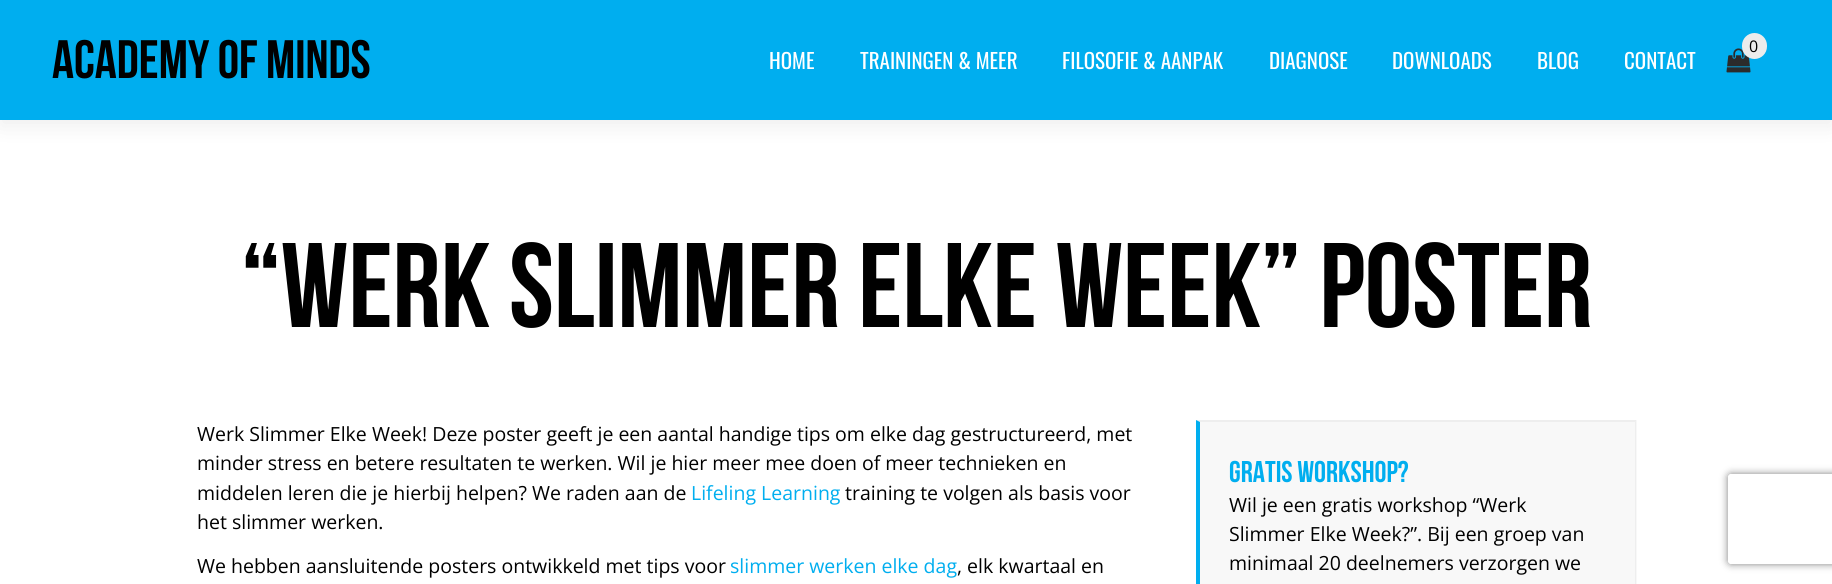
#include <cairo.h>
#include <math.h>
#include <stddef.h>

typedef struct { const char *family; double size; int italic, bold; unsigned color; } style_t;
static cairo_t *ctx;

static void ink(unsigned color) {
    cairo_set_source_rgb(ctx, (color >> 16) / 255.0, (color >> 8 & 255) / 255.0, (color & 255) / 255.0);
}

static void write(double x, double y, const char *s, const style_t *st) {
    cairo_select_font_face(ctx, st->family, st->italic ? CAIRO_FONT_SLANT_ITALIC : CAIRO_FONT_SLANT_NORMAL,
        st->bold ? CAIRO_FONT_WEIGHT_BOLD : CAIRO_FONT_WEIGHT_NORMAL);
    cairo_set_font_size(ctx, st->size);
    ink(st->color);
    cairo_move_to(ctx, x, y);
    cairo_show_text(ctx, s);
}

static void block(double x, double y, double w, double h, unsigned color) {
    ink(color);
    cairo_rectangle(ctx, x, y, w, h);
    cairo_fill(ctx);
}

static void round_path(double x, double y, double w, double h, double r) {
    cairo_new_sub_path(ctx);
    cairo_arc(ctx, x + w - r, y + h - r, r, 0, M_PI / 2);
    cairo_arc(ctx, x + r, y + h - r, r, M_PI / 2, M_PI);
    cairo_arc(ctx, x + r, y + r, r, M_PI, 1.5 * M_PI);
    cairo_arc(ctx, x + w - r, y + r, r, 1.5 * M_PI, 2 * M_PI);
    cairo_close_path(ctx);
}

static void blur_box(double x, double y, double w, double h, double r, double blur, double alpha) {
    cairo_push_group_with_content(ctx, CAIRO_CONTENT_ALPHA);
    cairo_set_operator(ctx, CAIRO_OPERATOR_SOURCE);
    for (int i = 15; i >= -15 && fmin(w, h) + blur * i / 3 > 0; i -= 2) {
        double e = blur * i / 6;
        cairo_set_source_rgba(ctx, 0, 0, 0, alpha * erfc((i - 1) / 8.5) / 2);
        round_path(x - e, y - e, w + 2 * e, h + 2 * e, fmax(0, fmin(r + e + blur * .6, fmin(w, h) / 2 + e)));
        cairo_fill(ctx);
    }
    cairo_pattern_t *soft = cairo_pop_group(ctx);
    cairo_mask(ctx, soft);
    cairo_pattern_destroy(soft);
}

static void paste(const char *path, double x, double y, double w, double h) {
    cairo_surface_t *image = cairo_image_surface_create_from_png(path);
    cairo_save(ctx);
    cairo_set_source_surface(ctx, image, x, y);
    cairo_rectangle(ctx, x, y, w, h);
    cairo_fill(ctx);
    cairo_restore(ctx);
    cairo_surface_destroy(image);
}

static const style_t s1 = {"Bebas Neue", 54, 0, 0, 0x000000};
static const style_t s2 = {"Open Sans", 16, 0, 0, 0x000000};
static const style_t s3 = {"Oswald", 21, 0, 0, 0xffffff};
static const style_t s4 = {"Bebas Neue", 120, 0, 0, 0x000000};
static const style_t s5 = {"Open Sans", 19.5, 0, 0, 0x000000};
static const style_t s6 = {"Open Sans", 19.5, 0, 0, 0x00aeef};
static const style_t s7 = {"Bebas Neue", 30, 0, 0, 0x00aeef};

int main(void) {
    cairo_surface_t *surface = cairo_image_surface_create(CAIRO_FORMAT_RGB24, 1832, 584);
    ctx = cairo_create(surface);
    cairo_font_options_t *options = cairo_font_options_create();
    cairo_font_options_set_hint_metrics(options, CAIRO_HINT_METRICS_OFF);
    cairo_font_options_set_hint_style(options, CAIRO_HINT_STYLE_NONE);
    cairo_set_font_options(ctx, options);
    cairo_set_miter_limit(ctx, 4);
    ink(0xffffff);
    cairo_paint(ctx);
    ink(0x000000);
    blur_box(0, 6, 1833, 120, 0, 11, 0.07);
    block(0, 0, 1832, 120, 0x00aeef);
    write(52, 78, "Academy of Minds", &s1);
    paste("pic1.png", 1726, 48, 25, 25);
    ink(0xececec);
    round_path(1742, 33, 25, 26, 12.5);
    cairo_fill(ctx);
    write(1749, 52, "0", &s2);
    write(769, 69, "HOME", &s3);
    write(860, 69, "TRAININGEN & MEER", &s3);
    write(1062, 69, "FILOSOFIE & AANPAK", &s3);
    write(1269, 69, "DIAGNOSE", &s3);
    write(1392, 69, "DOWNLOADS", &s3);
    write(1537, 69, "BLOG", &s3);
    write(1624, 69, "CONTACT", &s3);
    write(241, 327, "“Werk Slimmer Elke Week” Poster", &s4);
    write(197, 441, "Werk Slimmer Elke Week! Deze poster geeft je een aantal handige tips om elke dag gestructureerd, met", &s5);
    write(197, 470, "minder stress en betere resultaten te werken. Wil je hier meer mee doen of meer technieken en", &s5);
    write(197, 500, "middelen leren die je hierbij helpen? We raden aan de", &s5);
    write(691, 500, "Lifeling Learning", &s6);
    write(845, 500, "training te volgen als basis voor", &s5);
    write(197, 529, "het slimmer werken.", &s5);
    write(197, 573, "We hebben aansluitende posters ontwikkeld met tips voor", &s5);
    write(730, 573, "slimmer werken elke dag", &s6);
    write(957, 573, ", elk kwartaal en", &s5);
    block(1196, 420, 441, 164, 0xf8f8f8);
    ink(0xeeeeee);
    cairo_new_path(ctx);
    cairo_move_to(ctx, 1196, 420);
    cairo_line_to(ctx, 1636, 420);
    cairo_line_to(ctx, 1635, 422);
    cairo_line_to(ctx, 1200, 422);
    cairo_close_path(ctx);
    cairo_fill(ctx);
    cairo_set_source_rgba(ctx, 0, 0, 0, 0.04);
    cairo_new_path(ctx);
    cairo_move_to(ctx, 1636, 420);
    cairo_line_to(ctx, 1636, 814);
    cairo_line_to(ctx, 1635, 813);
    cairo_line_to(ctx, 1635, 422);
    cairo_close_path(ctx);
    cairo_fill(ctx);
    ink(0x00aeef);
    cairo_new_path(ctx);
    cairo_move_to(ctx, 1196, 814);
    cairo_line_to(ctx, 1196, 420);
    cairo_line_to(ctx, 1200, 422);
    cairo_line_to(ctx, 1200, 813);
    cairo_close_path(ctx);
    cairo_fill(ctx);
    write(1229, 482, "Gratis workshop?", &s7);
    write(1229, 512, "Wil je een gratis workshop “Werk", &s5);
    write(1229, 541, "Slimmer Elke Week?”. Bij een groep van", &s5);
    write(1229, 570, "minimaal 20 deelnemers verzorgen we", &s5);
    cairo_save(ctx);
    cairo_set_fill_rule(ctx, CAIRO_FILL_RULE_EVEN_ODD);
    cairo_new_path(ctx);
    cairo_move_to(ctx, 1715, 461);
    cairo_line_to(ctx, 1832, 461);
    cairo_line_to(ctx, 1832, 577);
    cairo_line_to(ctx, 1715, 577);
    cairo_close_path(ctx);
    cairo_move_to(ctx, 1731, 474);
    cairo_line_to(ctx, 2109, 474);
    cairo_curve_to(ctx, 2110.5, 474, 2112, 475.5, 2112, 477);
    cairo_line_to(ctx, 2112, 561);
    cairo_curve_to(ctx, 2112, 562.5, 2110.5, 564, 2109, 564);
    cairo_line_to(ctx, 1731, 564);
    cairo_curve_to(ctx, 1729.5, 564, 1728, 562.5, 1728, 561);
    cairo_line_to(ctx, 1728, 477);
    cairo_curve_to(ctx, 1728, 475.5, 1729.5, 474, 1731, 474);
    cairo_close_path(ctx);
    cairo_clip(ctx);
    ink(0x808080);
    blur_box(1728, 474, 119, 90, 3, 4, 1);
    cairo_restore(ctx);
    cairo_surface_write_to_png(surface, "screenshot.png");
    cairo_font_options_destroy(options);
    cairo_destroy(ctx);
    cairo_surface_destroy(surface);
    return 0;
}
